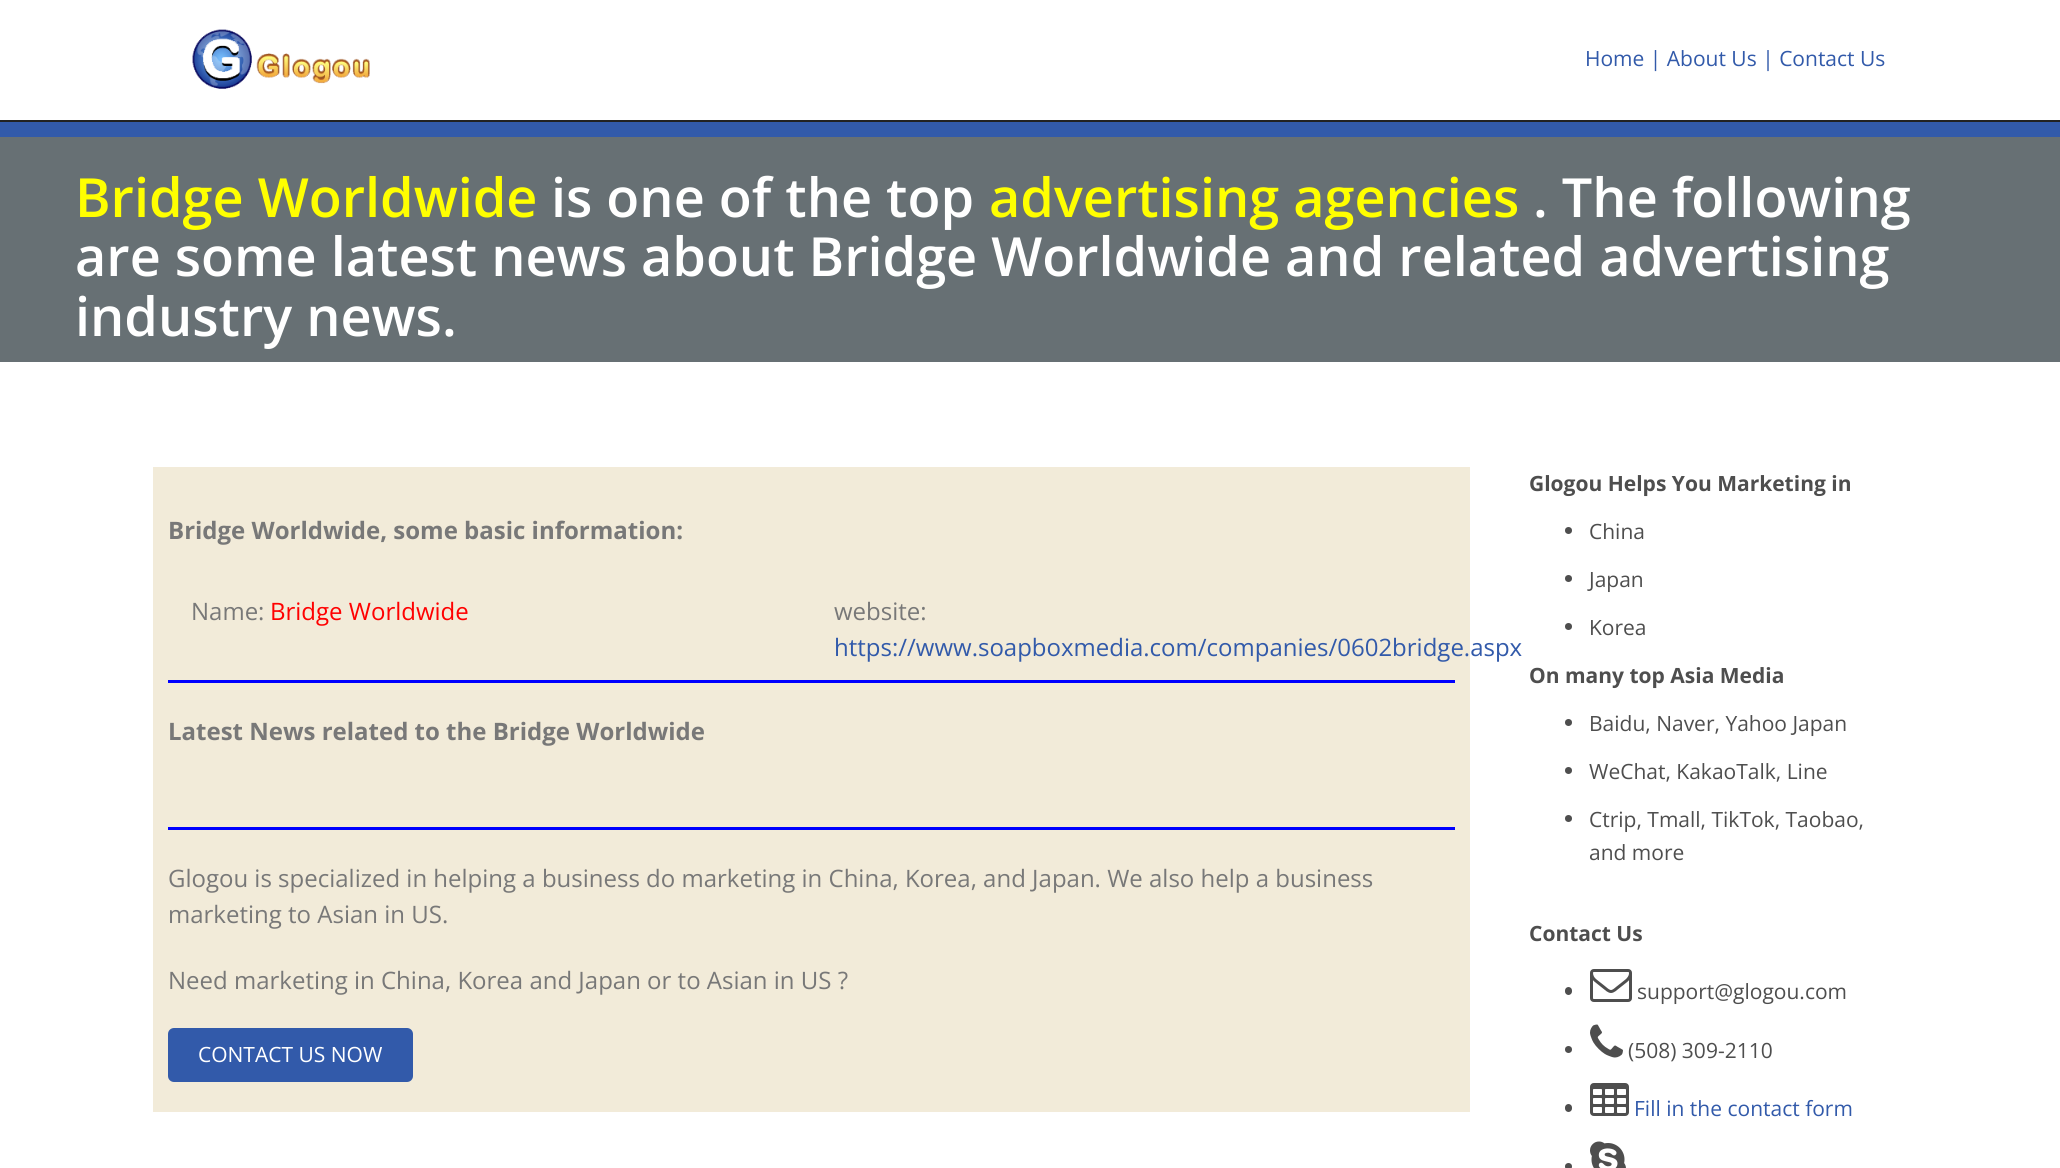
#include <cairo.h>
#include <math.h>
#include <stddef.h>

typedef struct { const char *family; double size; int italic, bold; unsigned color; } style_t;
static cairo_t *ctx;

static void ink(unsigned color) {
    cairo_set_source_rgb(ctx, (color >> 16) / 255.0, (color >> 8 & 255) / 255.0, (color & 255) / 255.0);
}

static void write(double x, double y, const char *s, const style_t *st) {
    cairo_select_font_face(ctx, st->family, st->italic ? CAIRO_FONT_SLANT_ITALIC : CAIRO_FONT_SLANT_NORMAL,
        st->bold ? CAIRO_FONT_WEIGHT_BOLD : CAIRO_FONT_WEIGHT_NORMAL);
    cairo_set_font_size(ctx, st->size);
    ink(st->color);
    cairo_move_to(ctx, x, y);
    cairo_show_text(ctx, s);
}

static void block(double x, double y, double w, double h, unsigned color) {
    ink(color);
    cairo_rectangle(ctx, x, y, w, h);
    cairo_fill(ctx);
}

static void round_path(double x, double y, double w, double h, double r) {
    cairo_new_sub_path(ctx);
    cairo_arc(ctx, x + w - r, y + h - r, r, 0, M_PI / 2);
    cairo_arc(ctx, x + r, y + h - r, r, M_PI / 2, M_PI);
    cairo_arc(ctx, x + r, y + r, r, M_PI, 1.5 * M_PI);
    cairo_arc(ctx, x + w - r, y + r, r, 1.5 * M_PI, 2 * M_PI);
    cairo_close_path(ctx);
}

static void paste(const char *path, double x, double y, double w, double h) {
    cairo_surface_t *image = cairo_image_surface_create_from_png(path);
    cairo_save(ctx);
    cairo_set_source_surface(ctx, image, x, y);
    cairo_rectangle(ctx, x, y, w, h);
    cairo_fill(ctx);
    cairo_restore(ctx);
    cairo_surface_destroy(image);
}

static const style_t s1 = {"Open Sans", 21, 0, 0, 0x325aaa};
static const style_t s2 = {"Open Sans SemiBold", 54, 0, 0, 0xffff00};
static const style_t s3 = {"Open Sans SemiBold", 54, 0, 0, 0xffffff};
static const style_t s4 = {"Open Sans", 24, 0, 1, 0x787878};
static const style_t s5 = {"Open Sans", 24, 0, 0, 0x787878};
static const style_t s6 = {"Open Sans", 24, 0, 0, 0xff0000};
static const style_t s7 = {"Open Sans", 24, 0, 0, 0x325aaa};
static const style_t s8 = {"Open Sans", 21, 0, 0, 0xffffff};
static const style_t s9 = {"Open Sans", 21, 0, 1, 0x4e4e4e};
static const style_t s10 = {"Open Sans", 21, 0, 0, 0x4e4e4e};

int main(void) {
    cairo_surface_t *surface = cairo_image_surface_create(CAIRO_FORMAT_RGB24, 2060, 1168);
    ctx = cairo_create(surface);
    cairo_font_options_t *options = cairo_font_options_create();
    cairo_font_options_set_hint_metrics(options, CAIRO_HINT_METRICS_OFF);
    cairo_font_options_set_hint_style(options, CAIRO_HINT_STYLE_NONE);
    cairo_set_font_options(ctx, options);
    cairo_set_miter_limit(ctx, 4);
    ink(0xffffff);
    cairo_paint(ctx);
    block(0, 122, 2060, 15, 0x325aaa);
    block(0, 120, 2060, 2, 0x222222);
    paste("pic1.png", 192, 29, 178, 60);
    write(1585, 66, "Home | About Us | Contact Us", &s1);
    block(0, 137, 2060, 225, 0x677074);
    write(75, 217, "Bridge Worldwide", &s2);
    write(551, 217, "is one of the top", &s3);
    write(989, 217, "advertising agencies", &s2);
    write(1533, 217, ". The following", &s3);
    write(75, 276, "are some latest news about Bridge Worldwide and related advertising", &s3);
    write(75, 336, "industry news.", &s3);
    block(153, 467, 1317, 645, 0xf2ebd9);
    write(168, 539, "Bridge Worldwide, some basic information:", &s4);
    write(191, 620, "Name:", &s5);
    write(270, 620, "Bridge Worldwide", &s6);
    write(834, 620, "website:", &s5);
    write(834, 656, "https://www.soapboxmedia.com/companies/0602bridge.aspx", &s7);
    block(168, 680, 1287, 3, 0x0000ff);
    write(168, 740, "Latest News related to the Bridge Worldwide", &s4);
    block(168, 827, 1287, 3, 0x0000ff);
    write(168, 887, "Glogou is specialized in helping a business do marketing in China, Korea, and Japan. We also help a business", &s5);
    write(168, 923, "marketing to Asian in US.", &s5);
    write(168, 989, "Need marketing in China, Korea and Japan or to Asian in US ?", &s5);
    ink(0x325aaa);
    round_path(168, 1028, 245, 54, 6);
    cairo_fill(ctx);
    write(198, 1062, "CONTACT US NOW", &s8);
    write(1529, 491, "Glogou Helps You Marketing in", &s9);
    cairo_new_path(ctx);
    cairo_arc(ctx, 1568.5, 530.5, 3.5, 0, 2 * M_PI);
    cairo_fill(ctx);
    write(1589, 539, "China", &s10);
    cairo_new_path(ctx);
    cairo_arc(ctx, 1568.5, 578.5, 3.5, 0, 2 * M_PI);
    cairo_fill(ctx);
    write(1589, 587, "Japan", &s10);
    cairo_new_path(ctx);
    cairo_arc(ctx, 1568.5, 626.5, 3.5, 0, 2 * M_PI);
    cairo_fill(ctx);
    write(1589, 635, "Korea", &s10);
    write(1529, 683, "On many top Asia Media", &s9);
    cairo_new_path(ctx);
    cairo_arc(ctx, 1568.5, 722.5, 3.5, 0, 2 * M_PI);
    cairo_fill(ctx);
    write(1589, 731, "Baidu, Naver, Yahoo Japan", &s10);
    cairo_new_path(ctx);
    cairo_arc(ctx, 1568.5, 770.5, 3.5, 0, 2 * M_PI);
    cairo_fill(ctx);
    write(1589, 779, "WeChat, KakaoTalk, Line", &s10);
    cairo_new_path(ctx);
    cairo_arc(ctx, 1568.5, 818.5, 3.5, 0, 2 * M_PI);
    cairo_fill(ctx);
    write(1589, 827, "Ctrip, Tmall, TikTok, Taobao,", &s10);
    write(1589, 860, "and more", &s10);
    write(1529, 941, "Contact Us", &s9);
    round_path(1565, 987, 7, 8, 3.5);
    cairo_fill(ctx);
    paste("pic2.png", 1590, 969, 42, 33);
    write(1637, 999, "support@glogou.com", &s10);
    cairo_new_path(ctx);
    cairo_arc(ctx, 1568.5, 1049.5, 3.5, 0, 2 * M_PI);
    cairo_fill(ctx);
    paste("pic3.png", 1590, 1024, 33, 34);
    write(1628, 1058, "(508) 309-2110", &s10);
    round_path(1565, 1104, 7, 8, 3.5);
    cairo_fill(ctx);
    paste("pic4.png", 1590, 1083, 39, 33);
    write(1634, 1116, "Fill in the contact form", &s1);
    ink(0x4e4e4e);
    cairo_new_path(ctx);
    cairo_arc(ctx, 1568.5, 1166.5, 3.5, 0, 2 * M_PI);
    cairo_fill(ctx);
    paste("pic5.png", 1590, 1141, 36, 27);
    cairo_surface_write_to_png(surface, "screenshot.png");
    cairo_font_options_destroy(options);
    cairo_destroy(ctx);
    cairo_surface_destroy(surface);
    return 0;
}
